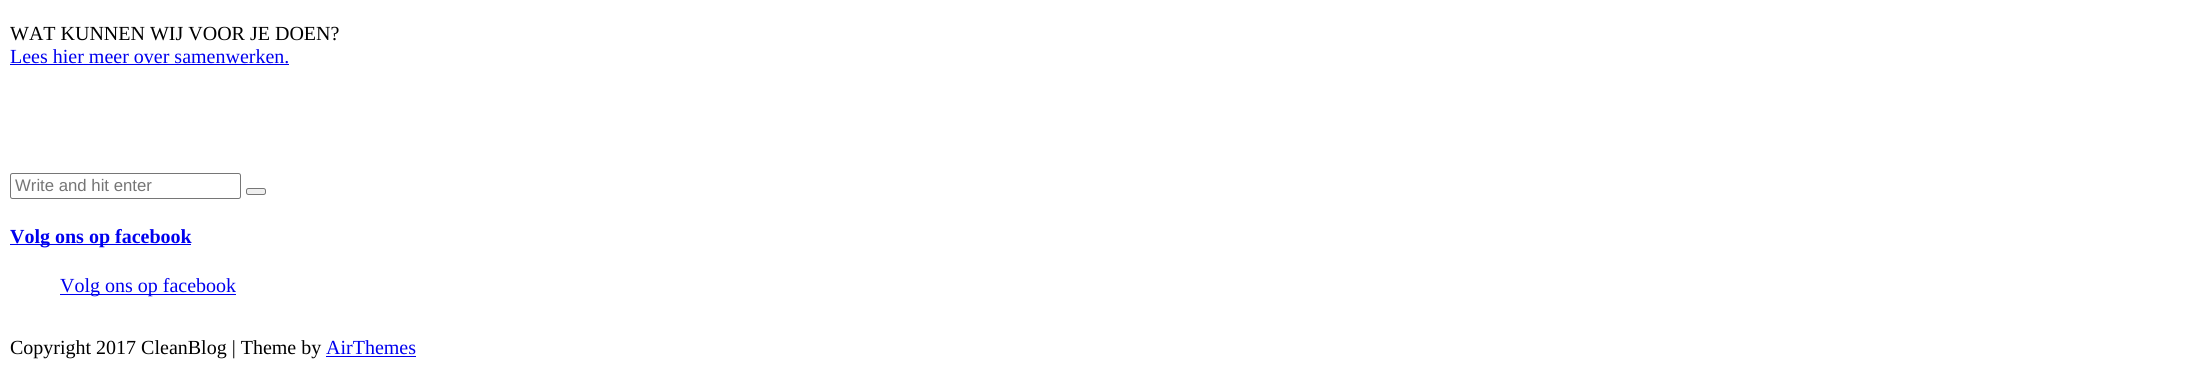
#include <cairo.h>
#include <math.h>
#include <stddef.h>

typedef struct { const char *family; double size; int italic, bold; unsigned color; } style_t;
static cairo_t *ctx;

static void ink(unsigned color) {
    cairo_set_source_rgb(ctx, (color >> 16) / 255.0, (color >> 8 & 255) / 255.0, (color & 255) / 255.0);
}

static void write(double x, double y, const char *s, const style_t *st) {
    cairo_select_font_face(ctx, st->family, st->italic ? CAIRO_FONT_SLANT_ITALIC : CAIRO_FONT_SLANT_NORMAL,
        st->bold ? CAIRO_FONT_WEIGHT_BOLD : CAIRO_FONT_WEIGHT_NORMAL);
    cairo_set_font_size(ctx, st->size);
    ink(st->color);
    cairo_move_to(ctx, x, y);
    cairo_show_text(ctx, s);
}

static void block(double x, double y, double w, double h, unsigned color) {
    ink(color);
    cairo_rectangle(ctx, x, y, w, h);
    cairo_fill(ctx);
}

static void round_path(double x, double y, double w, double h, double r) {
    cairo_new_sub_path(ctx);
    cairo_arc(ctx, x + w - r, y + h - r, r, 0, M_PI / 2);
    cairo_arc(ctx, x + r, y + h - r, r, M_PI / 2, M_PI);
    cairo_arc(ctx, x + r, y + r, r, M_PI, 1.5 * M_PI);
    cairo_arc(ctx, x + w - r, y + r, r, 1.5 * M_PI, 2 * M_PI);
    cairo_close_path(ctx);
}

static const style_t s1 = {"Liberation Serif", 20, 0, 0, 0x000000};
static const style_t s2 = {"Liberation Serif", 20, 0, 0, 0x0000ee};
static const style_t s3 = {"Liberation Sans", 16.75, 0, 0, 0x757575};
static const style_t s4 = {"Liberation Serif", 20, 0, 1, 0x0000ee};

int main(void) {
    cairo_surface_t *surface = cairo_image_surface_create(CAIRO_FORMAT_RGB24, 2196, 379);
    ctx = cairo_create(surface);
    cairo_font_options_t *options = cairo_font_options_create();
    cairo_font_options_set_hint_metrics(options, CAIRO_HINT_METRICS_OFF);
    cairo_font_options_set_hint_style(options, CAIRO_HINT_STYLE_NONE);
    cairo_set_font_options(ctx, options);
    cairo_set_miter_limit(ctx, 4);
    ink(0xffffff);
    cairo_paint(ctx);
    write(10, 40, "WAT KUNNEN WIJ VOOR JE DOEN?", &s1);
    write(10, 63, "Lees hier meer over samenwerken.", &s2);
    block(10, 64, 279, 1, 0x0000ee);
    round_path(10.5, 173.5, 230, 25, 2);
    ink(0x767676);
    cairo_set_line_width(ctx, 1);
    cairo_stroke(ctx);
    write(15, 191, "Write and hit enter", &s3);
    ink(0xefefef);
    round_path(246.5, 188.5, 19, 6, 2);
    cairo_fill_preserve(ctx);
    ink(0x767676);
    cairo_stroke(ctx);
    block(10, 244, 181, 1, 0x0000ee);
    write(10, 243, "Volg ons op facebook", &s4);
    block(60, 294, 176, 1, 0x0000ee);
    write(60, 292, "Volg ons op facebook", &s2);
    write(10, 354, "Copyright 2017 CleanBlog | Theme by", &s1);
    write(326, 354, "AirThemes", &s2);
    block(326, 356, 90, 1, 0x0000ee);
    cairo_surface_write_to_png(surface, "screenshot.png");
    cairo_font_options_destroy(options);
    cairo_destroy(ctx);
    cairo_surface_destroy(surface);
    return 0;
}
